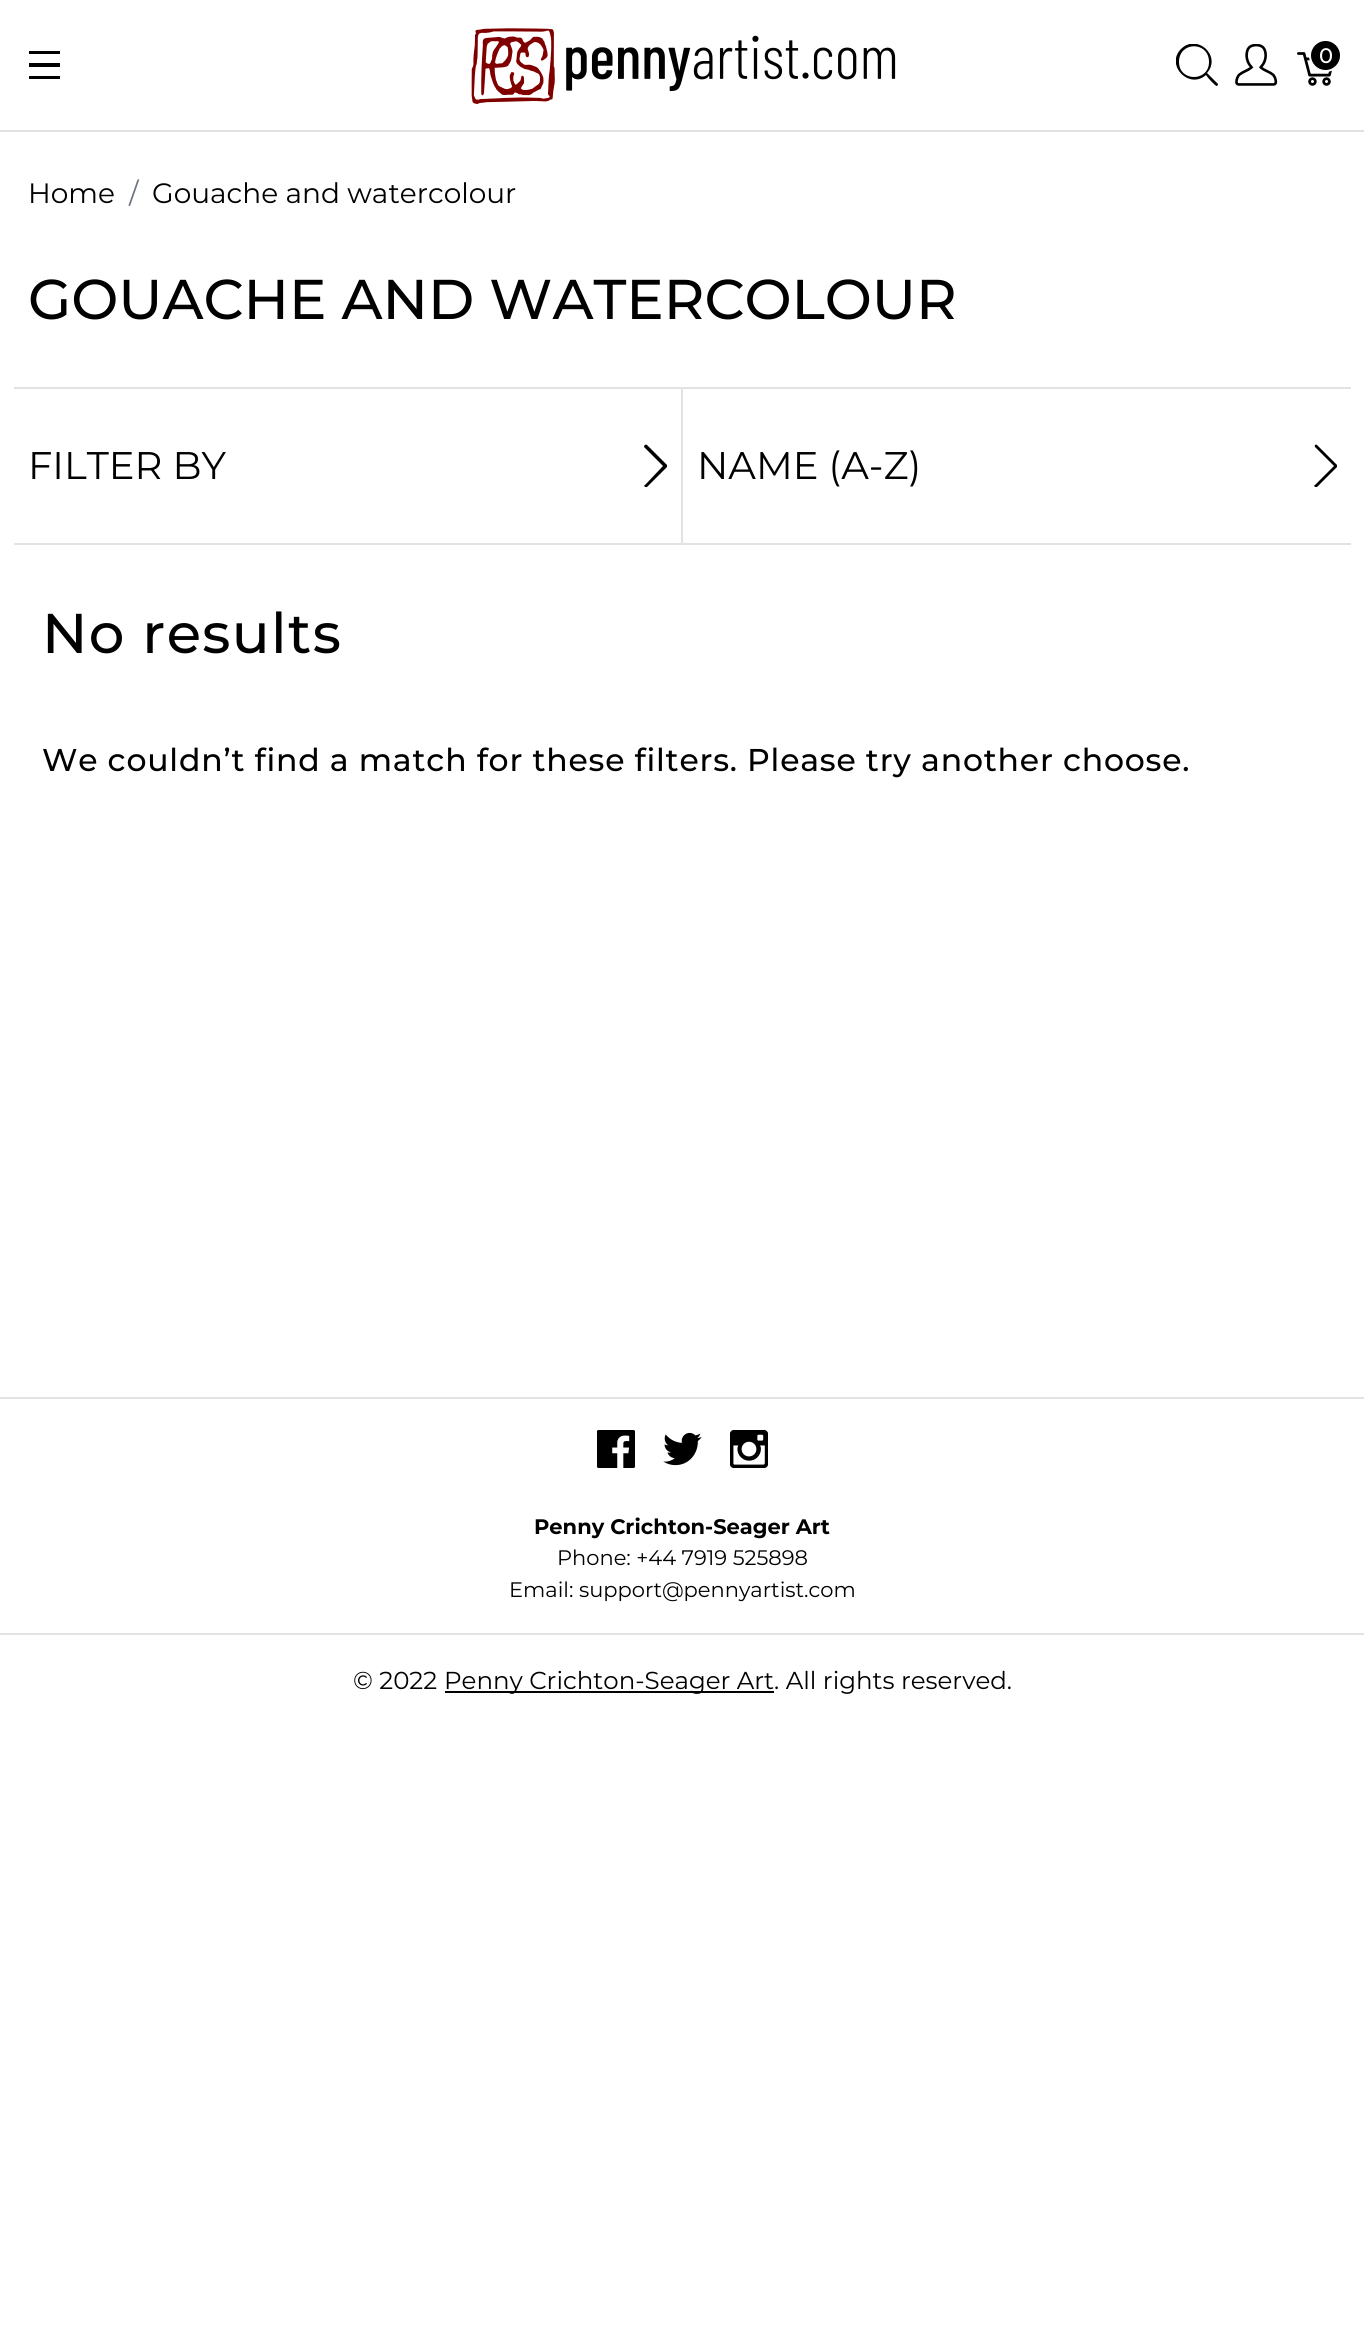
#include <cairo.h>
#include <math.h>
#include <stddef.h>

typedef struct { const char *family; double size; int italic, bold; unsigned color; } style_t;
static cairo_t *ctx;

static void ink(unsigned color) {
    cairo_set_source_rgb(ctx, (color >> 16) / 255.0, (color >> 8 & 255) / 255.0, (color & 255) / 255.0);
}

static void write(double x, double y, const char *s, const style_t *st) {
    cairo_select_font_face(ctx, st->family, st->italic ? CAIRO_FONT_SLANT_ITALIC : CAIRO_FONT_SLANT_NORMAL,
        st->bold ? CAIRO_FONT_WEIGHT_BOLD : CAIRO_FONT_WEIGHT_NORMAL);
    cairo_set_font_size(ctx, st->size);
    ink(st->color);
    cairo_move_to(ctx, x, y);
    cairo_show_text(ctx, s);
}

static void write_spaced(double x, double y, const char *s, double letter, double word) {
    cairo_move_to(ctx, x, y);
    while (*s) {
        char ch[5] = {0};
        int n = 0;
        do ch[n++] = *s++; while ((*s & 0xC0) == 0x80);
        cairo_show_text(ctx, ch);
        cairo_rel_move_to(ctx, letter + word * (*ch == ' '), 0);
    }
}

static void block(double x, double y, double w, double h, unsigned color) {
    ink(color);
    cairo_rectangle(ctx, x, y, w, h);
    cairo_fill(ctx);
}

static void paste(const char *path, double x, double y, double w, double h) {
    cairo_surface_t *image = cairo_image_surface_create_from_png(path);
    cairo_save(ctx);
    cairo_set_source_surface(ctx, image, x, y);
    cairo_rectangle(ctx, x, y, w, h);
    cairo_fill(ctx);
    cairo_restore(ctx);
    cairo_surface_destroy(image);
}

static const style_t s1 = {"Montserrat Medium", 21, 0, 0, 0xffffff};
static const style_t s2 = {"Montserrat", 28, 0, 0, 0x000000};
static const style_t s3 = {"Montserrat", 28, 0, 0, 0x6c757d};
static const style_t s4 = {"Montserrat Medium", 56, 0, 0, 0x000000};
static const style_t s5 = {"Montserrat", 38.5, 0, 0, 0x000000};
static const style_t s6 = {"Montserrat", 21, 0, 1, 0x000000};
static const style_t s7 = {"Montserrat", 21, 0, 0, 0x000000};
static const style_t s8 = {"Montserrat", 24.5, 0, 0, 0x000000};

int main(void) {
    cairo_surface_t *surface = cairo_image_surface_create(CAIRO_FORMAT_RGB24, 1364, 2341);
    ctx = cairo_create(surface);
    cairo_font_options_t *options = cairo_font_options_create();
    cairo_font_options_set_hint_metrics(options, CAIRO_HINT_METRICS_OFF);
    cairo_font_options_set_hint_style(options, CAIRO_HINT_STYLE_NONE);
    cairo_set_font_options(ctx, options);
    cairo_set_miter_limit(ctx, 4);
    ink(0xffffff);
    cairo_paint(ctx);
    block(0, 130, 1364, 2, 0xe2e2e2);
    block(29, 51, 31, 3, 0x000000);
    block(29, 63, 31, 4, 0x000000);
    block(29, 76, 31, 3, 0x000000);
    paste("pic1.png", 471, 28, 425, 77);
    cairo_save(ctx);
    cairo_rectangle(ctx, 1176, 44, 42, 42);
    cairo_clip(ctx);
    cairo_new_path(ctx);
    cairo_move_to(ctx, 1218, 84);
    cairo_line_to(ctx, 1207, 73);
    cairo_curve_to(ctx, 1222, 56, 1197, 33, 1181, 49);
    cairo_curve_to(ctx, 1165, 65, 1189, 90, 1206, 75);
    cairo_curve_to(ctx, 1207, 77, 1216, 87, 1217, 86);
    cairo_curve_to(ctx, 1218, 85, 1218, 84, 1218, 84);
    cairo_close_path(ctx);
    cairo_move_to(ctx, 1179, 62);
    cairo_curve_to(ctx, 1179, 41, 1209, 41, 1209, 62);
    cairo_curve_to(ctx, 1209, 82, 1179, 82, 1179, 62);
    cairo_close_path(ctx);
    cairo_fill(ctx);
    cairo_restore(ctx);
    paste("pic2.png", 1235, 44, 43, 42);
    paste("pic3.png", 1297, 52, 36, 34);
    cairo_arc(ctx, 1325.5, 55.5, 15.5, 0, 2 * M_PI);
    cairo_fill_preserve(ctx);
    ink(0xffffff);
    cairo_stroke(ctx);
    write(1319, 63, "0", &s1);
    write(28, 203, "Home", &s2);
    write(129, 203, "/", &s3);
    write(152, 203, "Gouache and watercolour", &s2);
    write(28, 319, "GOUACHE AND WATERCOLOUR", &s4);
    block(14, 387, 1337, 2, 0xe2e2e2);
    block(14, 543, 1337, 2, 0xe2e2e2);
    block(681, 389, 2, 154, 0xe2e2e2);
    write(28, 479, "FILTER BY", &s5);
    cairo_new_path(ctx);
    cairo_move_to(ctx, 647, 445);
    cairo_curve_to(ctx, 646, 444, 644, 445, 644, 447);
    cairo_line_to(ctx, 663, 466);
    cairo_line_to(ctx, 645, 485);
    cairo_curve_to(ctx, 644, 485, 644, 486, 645, 487);
    cairo_curve_to(ctx, 645, 487, 646, 487, 647, 487);
    cairo_line_to(ctx, 667, 467);
    cairo_curve_to(ctx, 667, 467, 667, 466, 667, 465);
    cairo_close_path(ctx);
    cairo_fill(ctx);
    write(697, 479, "NAME (A-Z)", &s5);
    cairo_new_path(ctx);
    cairo_move_to(ctx, 1317, 445);
    cairo_curve_to(ctx, 1316, 444, 1314, 445, 1315, 447);
    cairo_line_to(ctx, 1334, 466);
    cairo_line_to(ctx, 1315, 485);
    cairo_curve_to(ctx, 1314, 485, 1314, 486, 1315, 487);
    cairo_curve_to(ctx, 1316, 487, 1317, 487, 1317, 487);
    cairo_line_to(ctx, 1337, 467);
    cairo_curve_to(ctx, 1337, 467, 1337, 466, 1337, 465);
    cairo_close_path(ctx);
    cairo_fill(ctx);
    cairo_select_font_face(ctx, "Montserrat Medium", CAIRO_FONT_SLANT_NORMAL, CAIRO_FONT_WEIGHT_NORMAL);
    cairo_set_font_size(ctx, 56);
    write_spaced(42, 653, "No results", 1.4, 0);
    cairo_set_font_size(ctx, 31.5);
    write_spaced(42, 771, "We couldn’t find a match for these filters. Please try another choose.", 0.8, 0);
    block(0, 1397, 1364, 2, 0xe2e2e2);
    paste("pic4.png", 597, 1430, 38, 38);
    paste("pic5.png", 663, 1432, 39, 34);
    paste("pic6.png", 730, 1430, 38, 38);
    write(534, 1534, "Penny Crichton-Seager Art", &s6);
    write(557, 1565, "Phone: +44 7919 525898", &s7);
    write(509, 1597, "Email: support@pennyartist.com", &s7);
    block(0, 1633, 1364, 2, 0xe2e2e2);
    write(353, 1689, "© 2022", &s8);
    block(445, 1691, 329, 2, 0x000000);
    write(444, 1689, "Penny Crichton-Seager Art. All rights reserved.", &s8);
    cairo_surface_write_to_png(surface, "screenshot.png");
    cairo_font_options_destroy(options);
    cairo_destroy(ctx);
    cairo_surface_destroy(surface);
    return 0;
}
